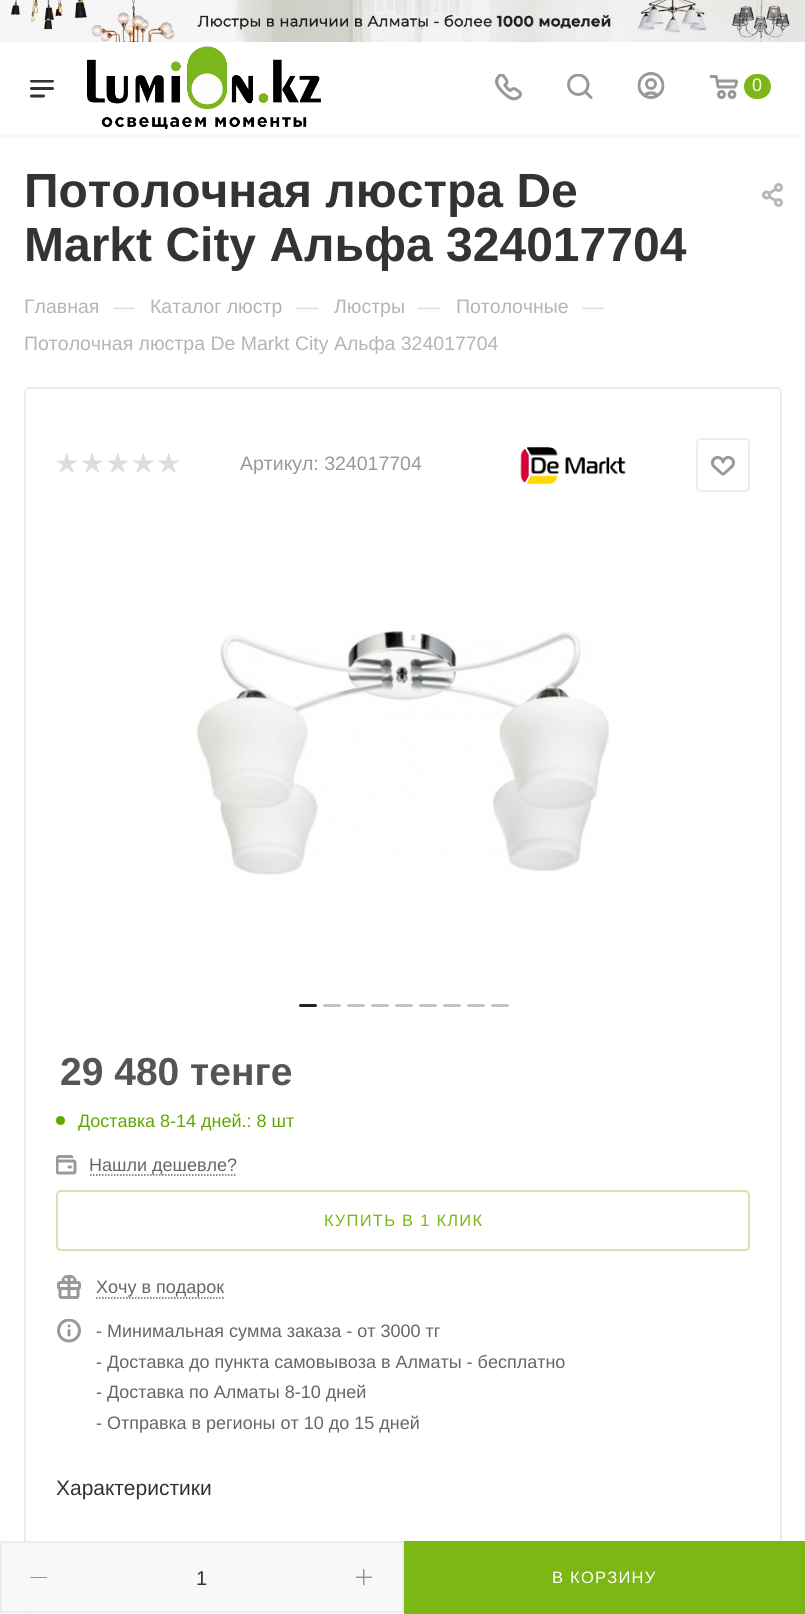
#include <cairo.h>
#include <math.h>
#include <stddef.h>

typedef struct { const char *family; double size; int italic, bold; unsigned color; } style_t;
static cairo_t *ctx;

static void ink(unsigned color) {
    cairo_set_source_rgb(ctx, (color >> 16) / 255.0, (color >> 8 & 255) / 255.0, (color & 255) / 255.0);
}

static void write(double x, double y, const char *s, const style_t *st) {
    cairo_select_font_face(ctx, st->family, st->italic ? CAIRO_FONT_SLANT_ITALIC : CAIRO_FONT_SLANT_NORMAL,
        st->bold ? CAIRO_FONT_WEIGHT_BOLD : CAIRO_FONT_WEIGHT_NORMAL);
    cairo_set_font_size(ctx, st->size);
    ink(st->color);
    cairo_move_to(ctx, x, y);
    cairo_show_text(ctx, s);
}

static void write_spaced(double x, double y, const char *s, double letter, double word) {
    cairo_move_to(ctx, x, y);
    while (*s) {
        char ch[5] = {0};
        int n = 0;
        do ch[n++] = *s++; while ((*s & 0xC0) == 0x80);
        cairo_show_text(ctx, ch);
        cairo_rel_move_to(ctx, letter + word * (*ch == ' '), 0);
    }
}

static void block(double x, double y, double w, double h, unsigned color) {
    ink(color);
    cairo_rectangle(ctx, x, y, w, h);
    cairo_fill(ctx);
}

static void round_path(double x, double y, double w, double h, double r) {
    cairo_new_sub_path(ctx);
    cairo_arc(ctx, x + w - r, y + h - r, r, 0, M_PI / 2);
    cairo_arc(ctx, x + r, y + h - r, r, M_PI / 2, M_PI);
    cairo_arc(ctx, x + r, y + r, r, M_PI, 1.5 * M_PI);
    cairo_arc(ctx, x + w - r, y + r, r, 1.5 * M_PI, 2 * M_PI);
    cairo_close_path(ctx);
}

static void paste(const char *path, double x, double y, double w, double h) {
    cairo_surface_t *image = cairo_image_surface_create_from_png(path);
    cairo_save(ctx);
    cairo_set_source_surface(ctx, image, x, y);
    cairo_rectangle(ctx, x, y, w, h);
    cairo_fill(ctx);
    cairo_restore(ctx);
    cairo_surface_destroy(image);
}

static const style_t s1 = {"Liberation Sans", 18, 0, 0, 0xffffff};
static const style_t s2 = {"Liberation Sans", 48, 0, 1, 0x333333};
static const style_t s3 = {"Liberation Sans", 19.5, 0, 0, 0xb6b5b5};
static const style_t s4 = {"Liberation Sans", 22, 0, 0, 0xdddddd};
static const style_t s5 = {"Liberation Sans", 19.5, 0, 0, 0x999999};
static const style_t s6 = {"Liberation Sans", 39, 0, 1, 0x555555};
static const style_t s7 = {"Liberation Sans", 18, 0, 0, 0x5fa800};
static const style_t s8 = {"Liberation Sans", 18, 0, 0, 0x666666};
static const style_t s9 = {"Liberation Sans", 20, 0, 0, 0x333333};
static const style_t s10 = {"Liberation Sans", 21, 0, 0, 0x333333};

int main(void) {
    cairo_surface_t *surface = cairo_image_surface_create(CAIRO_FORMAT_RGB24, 805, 1614);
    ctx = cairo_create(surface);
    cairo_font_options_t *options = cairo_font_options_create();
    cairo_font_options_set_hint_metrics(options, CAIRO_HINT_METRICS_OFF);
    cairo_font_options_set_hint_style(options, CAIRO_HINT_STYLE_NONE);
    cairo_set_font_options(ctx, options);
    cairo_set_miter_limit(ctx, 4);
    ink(0xffffff);
    cairo_paint(ctx);
    paste("pic1.png", 0, 0, 805, 42);
    block(0, 135, 805, 2, 0xf8f8f8);
    paste("pic2.png", 30, 80, 24, 18);
    paste("pic3.png", 87, 46, 234, 83);
    paste("pic4.png", 495, 74, 27, 27);
    paste("pic5.png", 567, 74, 26, 25);
    paste("pic6.png", 637, 72, 28, 27);
    paste("pic7.png", 709, 75, 29, 24);
    ink(0x7cb715);
    round_path(744, 74, 27, 25, 12.5);
    cairo_fill(ctx);
    write(752, 91, "0", &s1);
    write(24, 207, "Потолочная люстра De", &s2);
    write(24, 261, "Markt City Альфа 324017704", &s2);
    paste("pic8.png", 762, 183, 21, 24);
    write(24, 313, "Главная", &s3);
    write(113, 314, "—", &s4);
    write(150, 313, "Каталог люстр", &s3);
    write(296, 314, "—", &s4);
    write(334, 313, "Люстры", &s3);
    write(418, 314, "—", &s4);
    write(456, 313, "Потолочные", &s3);
    write(582, 314, "—", &s4);
    write(24, 350, "Потолочная люстра De Markt City Альфа 324017704", &s3);
    round_path(25, 388, 756, 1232, 4);
    ink(0xececec);
    cairo_stroke(ctx);
    paste("pic9.png", 56, 453, 21, 20);
    paste("pic10.png", 82, 453, 21, 20);
    paste("pic9.png", 107, 453, 21, 20);
    paste("pic10.png", 133, 453, 21, 20);
    paste("pic9.png", 158, 453, 21, 20);
    write(240, 470, "Артикул: 324017704", &s5);
    paste("pic11.png", 520, 447, 106, 38);
    round_path(697, 439, 52, 52, 4);
    ink(0xececec);
    cairo_stroke(ctx);
    paste("pic12.png", 711, 456, 24, 20);
    paste("pic13.png", 196, 630, 414, 245);
    ink(0x222222);
    round_path(299, 1004, 18, 3, 1.5);
    cairo_fill(ctx);
    ink(0xc4c4c4);
    round_path(323, 1004, 18, 3, 1.5);
    cairo_fill(ctx);
    round_path(347, 1004, 18, 3, 1.5);
    cairo_fill(ctx);
    round_path(371, 1004, 18, 3, 1.5);
    cairo_fill(ctx);
    round_path(395, 1004, 18, 3, 1.5);
    cairo_fill(ctx);
    round_path(419, 1004, 18, 3, 1.5);
    cairo_fill(ctx);
    round_path(443, 1004, 18, 3, 1.5);
    cairo_fill(ctx);
    round_path(467, 1004, 18, 3, 1.5);
    cairo_fill(ctx);
    round_path(491, 1004, 18, 3, 1.5);
    cairo_fill(ctx);
    write(60, 1085, "29 480 тенге", &s6);
    ink(0x5fa800);
    cairo_new_path(ctx);
    cairo_arc(ctx, 60.5, 1120.5, 4.5, 0, 2 * M_PI);
    cairo_fill(ctx);
    write(78, 1127, "Доставка 8-14 дней.: 8 шт", &s7);
    paste("pic14.png", 56, 1155, 21, 20);
    cairo_new_path(ctx);
    cairo_move_to(ctx, 90, 1175);
    cairo_line_to(ctx, 237, 1175);
    ink(0x666666);
    cairo_set_line_width(ctx, 1.5);
    cairo_set_dash(ctx, (double[]){1.5, 1.5}, 2, 0);
    cairo_stroke(ctx);
    write(89, 1171, "Нашли дешевле?", &s8);
    paste("pic15.png", 57, 1275, 24, 24);
    write(96, 1293, "Хочу в подарок", &s8);
    cairo_new_path(ctx);
    cairo_move_to(ctx, 96, 1298);
    cairo_line_to(ctx, 223.5, 1298);
    cairo_stroke(ctx);
    round_path(57, 1191, 692, 59, 4);
    ink(0xd1e6ad);
    cairo_set_line_width(ctx, 2);
    cairo_set_dash(ctx, NULL, 0, 0);
    cairo_stroke(ctx);
    cairo_set_font_size(ctx, 16.5);
    ink(0x7cb715);
    write_spaced(324, 1226, "КУПИТЬ В 1 КЛИК", 1.25, 0);
    ink(0xf8f8f8);
    cairo_rectangle(ctx, 1, 1542, 402, 70);
    cairo_fill_preserve(ctx);
    ink(0xececec);
    cairo_stroke(ctx);
    ink(0x969696);
    round_path(30, 1577, 17, 1, 0.5);
    cairo_fill(ctx);
    write(196, 1585, "1", &s9);
    paste("pic16.png", 356, 1569, 16, 17);
    block(404, 1541, 401, 73, 0x7cb715);
    cairo_set_font_size(ctx, 16.5);
    ink(0xffffff);
    write_spaced(552, 1583, "В КОРЗИНУ", 1.25, 0);
    paste("pic17.png", 57, 1319, 24, 24);
    write(96, 1337, "- Минимальная сумма заказа - от 3000 тг", &s8);
    write(96, 1368, "- Доставка до пункта самовывоза в Алматы - бесплатно", &s8);
    write(96, 1398, "- Доставка по Алматы 8-10 дней", &s8);
    write(96, 1429, "- Отправка в регионы от 10 до 15 дней", &s8);
    write(56, 1495, "Характеристики", &s10);
    cairo_surface_write_to_png(surface, "screenshot.png");
    cairo_font_options_destroy(options);
    cairo_destroy(ctx);
    cairo_surface_destroy(surface);
    return 0;
}
